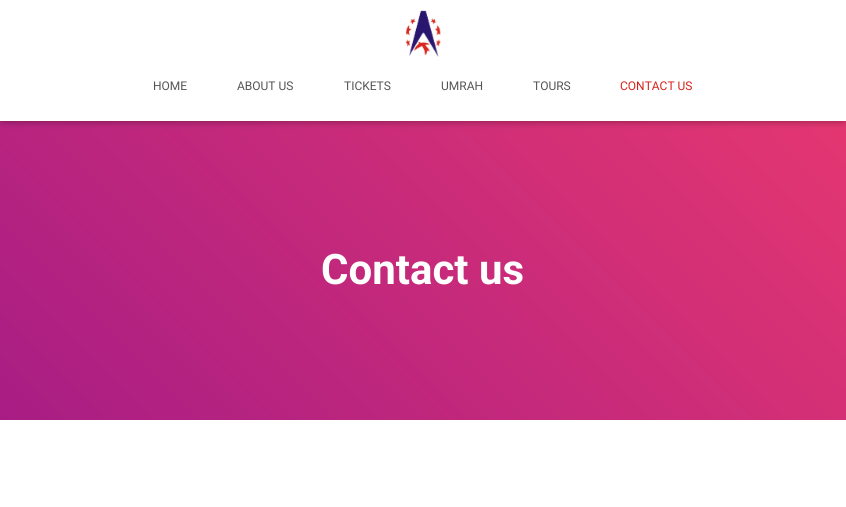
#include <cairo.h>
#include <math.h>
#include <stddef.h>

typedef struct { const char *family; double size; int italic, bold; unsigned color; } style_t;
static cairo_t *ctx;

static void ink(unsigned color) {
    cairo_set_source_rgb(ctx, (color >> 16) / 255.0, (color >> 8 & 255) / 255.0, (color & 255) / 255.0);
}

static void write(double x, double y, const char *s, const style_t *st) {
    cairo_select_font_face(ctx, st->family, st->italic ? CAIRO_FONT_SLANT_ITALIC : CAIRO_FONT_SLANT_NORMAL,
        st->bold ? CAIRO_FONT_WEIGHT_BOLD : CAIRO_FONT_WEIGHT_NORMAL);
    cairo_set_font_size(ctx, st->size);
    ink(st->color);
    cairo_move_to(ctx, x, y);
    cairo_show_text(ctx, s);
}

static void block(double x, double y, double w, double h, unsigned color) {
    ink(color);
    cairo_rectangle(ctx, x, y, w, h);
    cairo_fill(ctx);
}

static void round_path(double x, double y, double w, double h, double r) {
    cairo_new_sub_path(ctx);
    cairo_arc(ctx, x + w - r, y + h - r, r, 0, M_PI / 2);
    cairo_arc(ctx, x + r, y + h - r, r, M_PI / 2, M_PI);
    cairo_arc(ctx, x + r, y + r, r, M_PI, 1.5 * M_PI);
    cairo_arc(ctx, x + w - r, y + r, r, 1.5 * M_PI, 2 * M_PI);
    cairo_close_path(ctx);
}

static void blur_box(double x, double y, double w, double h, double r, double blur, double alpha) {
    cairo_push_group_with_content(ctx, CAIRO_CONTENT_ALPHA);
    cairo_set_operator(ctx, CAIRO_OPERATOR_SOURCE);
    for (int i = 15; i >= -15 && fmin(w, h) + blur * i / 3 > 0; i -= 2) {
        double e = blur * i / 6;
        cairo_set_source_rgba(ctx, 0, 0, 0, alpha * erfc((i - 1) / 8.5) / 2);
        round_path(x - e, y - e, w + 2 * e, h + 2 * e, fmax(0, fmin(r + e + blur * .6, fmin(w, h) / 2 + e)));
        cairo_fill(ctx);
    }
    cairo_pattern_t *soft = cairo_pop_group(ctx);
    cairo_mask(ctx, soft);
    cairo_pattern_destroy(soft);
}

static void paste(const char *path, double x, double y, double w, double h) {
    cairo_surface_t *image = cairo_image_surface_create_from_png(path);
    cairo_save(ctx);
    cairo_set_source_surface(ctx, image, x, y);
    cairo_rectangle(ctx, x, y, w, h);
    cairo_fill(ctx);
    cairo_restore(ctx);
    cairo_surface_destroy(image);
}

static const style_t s1 = {"Roboto", 12, 0, 0, 0x555555};
static const style_t s2 = {"Roboto", 12, 0, 0, 0xd6221b};
static const style_t s3 = {"Roboto", 42, 0, 1, 0xffffff};

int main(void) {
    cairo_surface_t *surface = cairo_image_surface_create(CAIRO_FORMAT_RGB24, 846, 507);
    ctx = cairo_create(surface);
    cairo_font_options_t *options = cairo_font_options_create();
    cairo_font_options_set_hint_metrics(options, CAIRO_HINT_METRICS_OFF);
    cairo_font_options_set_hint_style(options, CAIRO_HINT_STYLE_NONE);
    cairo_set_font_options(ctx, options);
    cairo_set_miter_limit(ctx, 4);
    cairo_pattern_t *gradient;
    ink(0xffffff);
    cairo_paint(ctx);
    gradient = cairo_pattern_create_linear(107, 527, 740, -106);
    cairo_pattern_add_color_stop_rgba(gradient, 0, 0.659, 0.114, 0.518, 1);
    cairo_pattern_add_color_stop_rgba(gradient, 1, 0.918, 0.224, 0.435, 1);
    cairo_set_source(ctx, gradient);
    cairo_pattern_destroy(gradient);
    cairo_rectangle(ctx, 0, 121, 846, 299);
    cairo_fill(ctx);
    ink(0x000000);
    blur_box(2, 6, 842, 117, 0, 2.5, 0.1);
    blur_box(0, 1, 846, 121, 0, 5, 0.12);
    blur_box(6, 7, 834, 109, 0, 5, 0.42);
    block(0, 0, 846, 121, 0xffffff);
    paste("pic1.png", 405, 10, 36, 47);
    write(153, 90, "HOME", &s1);
    write(237, 90, "ABOUT US", &s1);
    write(344, 90, "TICKETS", &s1);
    write(441, 90, "UMRAH", &s1);
    write(533, 90, "TOURS", &s1);
    write(620, 90, "CONTACT US", &s2);
    write(321, 284, "Contact us", &s3);
    cairo_surface_write_to_png(surface, "screenshot.png");
    cairo_font_options_destroy(options);
    cairo_destroy(ctx);
    cairo_surface_destroy(surface);
    return 0;
}
